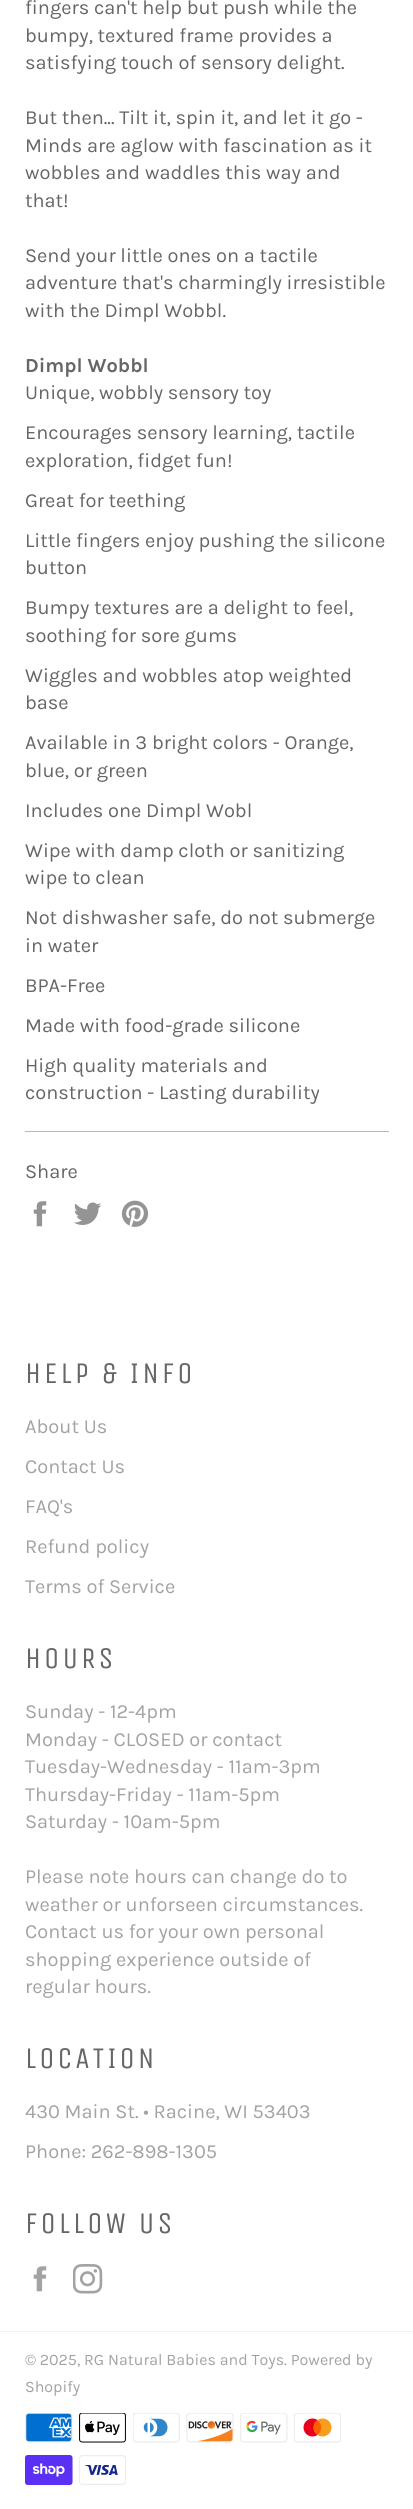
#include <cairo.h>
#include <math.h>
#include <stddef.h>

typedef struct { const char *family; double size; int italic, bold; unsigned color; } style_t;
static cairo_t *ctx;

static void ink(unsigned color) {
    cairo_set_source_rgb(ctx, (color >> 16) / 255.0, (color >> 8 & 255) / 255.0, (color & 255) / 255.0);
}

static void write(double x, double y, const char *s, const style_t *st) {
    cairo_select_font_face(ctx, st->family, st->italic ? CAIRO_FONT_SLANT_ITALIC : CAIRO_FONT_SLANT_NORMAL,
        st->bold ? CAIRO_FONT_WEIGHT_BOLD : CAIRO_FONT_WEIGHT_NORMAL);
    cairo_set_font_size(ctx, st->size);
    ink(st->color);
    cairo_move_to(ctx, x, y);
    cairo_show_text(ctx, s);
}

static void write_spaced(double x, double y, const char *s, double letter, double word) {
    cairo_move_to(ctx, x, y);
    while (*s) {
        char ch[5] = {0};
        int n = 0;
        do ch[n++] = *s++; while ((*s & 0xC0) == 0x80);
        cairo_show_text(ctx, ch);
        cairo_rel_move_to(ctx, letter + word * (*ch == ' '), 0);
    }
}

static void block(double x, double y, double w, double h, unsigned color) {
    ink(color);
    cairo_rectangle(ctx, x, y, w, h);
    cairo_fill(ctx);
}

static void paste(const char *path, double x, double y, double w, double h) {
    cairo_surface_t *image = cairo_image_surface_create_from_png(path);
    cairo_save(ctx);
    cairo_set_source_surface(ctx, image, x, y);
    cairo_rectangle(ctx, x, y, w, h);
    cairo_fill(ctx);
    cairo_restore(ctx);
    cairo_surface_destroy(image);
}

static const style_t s1 = {"Karla", 20, 0, 0, 0x666666};
static const style_t s2 = {"Karla", 20, 0, 1, 0x666666};
static const style_t s3 = {"Karla", 20, 0, 0, 0xa3a3a3};
static const style_t s4 = {"Karla", 16, 0, 0, 0xa3a3a3};

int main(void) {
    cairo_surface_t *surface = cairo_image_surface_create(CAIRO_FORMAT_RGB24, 413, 2509);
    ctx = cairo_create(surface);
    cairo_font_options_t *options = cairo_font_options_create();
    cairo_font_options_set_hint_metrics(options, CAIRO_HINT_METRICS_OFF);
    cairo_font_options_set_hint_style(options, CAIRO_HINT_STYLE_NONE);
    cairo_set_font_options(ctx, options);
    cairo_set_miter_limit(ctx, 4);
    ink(0xffffff);
    cairo_paint(ctx);
    write(25, 14, "fingers can't help but push while the", &s1);
    write(25, 42, "bumpy, textured frame provides a", &s1);
    write(25, 69, "satisfying touch of sensory delight.", &s1);
    write(25, 124, "But then... Tilt it, spin it, and let it go -", &s1);
    write(25, 152, "Minds are aglow with fascination as it", &s1);
    write(25, 179, "wobbles and waddles this way and", &s1);
    write(25, 207, "that!", &s1);
    write(25, 262, "Send your little ones on a tactile", &s1);
    write(25, 289, "adventure that's charmingly irresistible", &s1);
    write(25, 317, "with the Dimpl Wobbl.", &s1);
    write(25, 372, "Dimpl Wobbl", &s2);
    write(25, 399, "Unique, wobbly sensory toy", &s1);
    write(25, 439, "Encourages sensory learning, tactile", &s1);
    write(25, 467, "exploration, fidget fun!", &s1);
    write(25, 507, "Great for teething", &s1);
    write(25, 547, "Little fingers enjoy pushing the silicone", &s1);
    write(25, 574, "button", &s1);
    write(25, 614, "Bumpy textures are a delight to feel,", &s1);
    write(25, 642, "soothing for sore gums", &s1);
    write(25, 682, "Wiggles and wobbles atop weighted", &s1);
    write(25, 709, "base", &s1);
    write(25, 749, "Available in 3 bright colors - Orange,", &s1);
    write(25, 777, "blue, or green", &s1);
    write(25, 817, "Includes one Dimpl Wobl", &s1);
    write(25, 857, "Wipe with damp cloth or sanitizing", &s1);
    write(25, 884, "wipe to clean", &s1);
    write(25, 924, "Not dishwasher safe, do not submerge", &s1);
    write(25, 952, "in water", &s1);
    write(25, 992, "BPA-Free", &s1);
    write(25, 1032, "Made with food-grade silicone", &s1);
    write(25, 1072, "High quality materials and", &s1);
    write(25, 1099, "construction - Lasting durability", &s1);
    block(25, 1131, 364, 1, 0xc4add4);
    write(25, 1178, "Share", &s1);
    paste("pic1.png", 33, 1201, 14, 26);
    paste("pic2.png", 74, 1202, 28, 23);
    paste("pic3.png", 121, 1200, 28, 27);
    cairo_select_font_face(ctx, "Unica One", CAIRO_FONT_SLANT_NORMAL, CAIRO_FONT_WEIGHT_NORMAL);
    cairo_set_font_size(ctx, 30);
    write_spaced(25, 1383, "HELP & INFO", 3, 0);
    write(25, 1433, "About Us", &s3);
    write(25, 1473, "Contact Us", &s3);
    write(25, 1513, "FAQ's", &s3);
    write(25, 1553, "Refund policy", &s3);
    write(25, 1593, "Terms of Service", &s3);
    cairo_select_font_face(ctx, "Unica One", CAIRO_FONT_SLANT_NORMAL, CAIRO_FONT_WEIGHT_NORMAL);
    cairo_set_font_size(ctx, 30);
    ink(0x666666);
    write_spaced(25, 1668, "HOURS", 3, 0);
    write(25, 1718, "Sunday - 12-4pm", &s3);
    write(25, 1746, "Monday - CLOSED or contact", &s3);
    write(25, 1773, "Tuesday-Wednesday - 11am-3pm", &s3);
    write(25, 1801, "Thursday-Friday - 11am-5pm", &s3);
    write(25, 1828, "Saturday - 10am-5pm", &s3);
    write(25, 1883, "Please note hours can change do to", &s3);
    write(25, 1911, "weather or unforseen circumstances.", &s3);
    write(25, 1938, "Contact us for your own personal", &s3);
    write(25, 1966, "shopping experience outside of", &s3);
    write(25, 1993, "regular hours.", &s3);
    cairo_select_font_face(ctx, "Unica One", CAIRO_FONT_SLANT_NORMAL, CAIRO_FONT_WEIGHT_NORMAL);
    cairo_set_font_size(ctx, 30);
    ink(0x666666);
    write_spaced(25, 2068, "LOCATION", 3, 0);
    write(25, 2118, "430 Main St. • Racine, WI 53403", &s3);
    write(25, 2158, "Phone: 262-898-1305", &s3);
    cairo_select_font_face(ctx, "Unica One", CAIRO_FONT_SLANT_NORMAL, CAIRO_FONT_WEIGHT_NORMAL);
    cairo_set_font_size(ctx, 30);
    ink(0x666666);
    write_spaced(25, 2233, "FOLLOW US", 3, 0);
    paste("pic4.png", 33, 2266, 14, 26);
    paste("pic5.png", 73, 2264, 30, 30);
    block(0, 2331, 413, 1, 0xf2f2f2);
    write(25, 2365, "© 2025, RG Natural Babies and Toys. Powered by", &s4);
    write(25, 2392, "Shopify", &s4);
    paste("pic6.png", 25, 2413, 48, 30);
    paste("pic7.png", 79, 2413, 47, 30);
    paste("pic8.png", 133, 2413, 47, 30);
    paste("pic9.png", 186, 2413, 48, 30);
    paste("pic10.png", 240, 2413, 48, 30);
    paste("pic11.png", 294, 2413, 47, 30);
    paste("pic12.png", 25, 2455, 48, 30);
    paste("pic13.png", 79, 2455, 47, 30);
    cairo_surface_write_to_png(surface, "screenshot.png");
    cairo_font_options_destroy(options);
    cairo_destroy(ctx);
    cairo_surface_destroy(surface);
    return 0;
}
